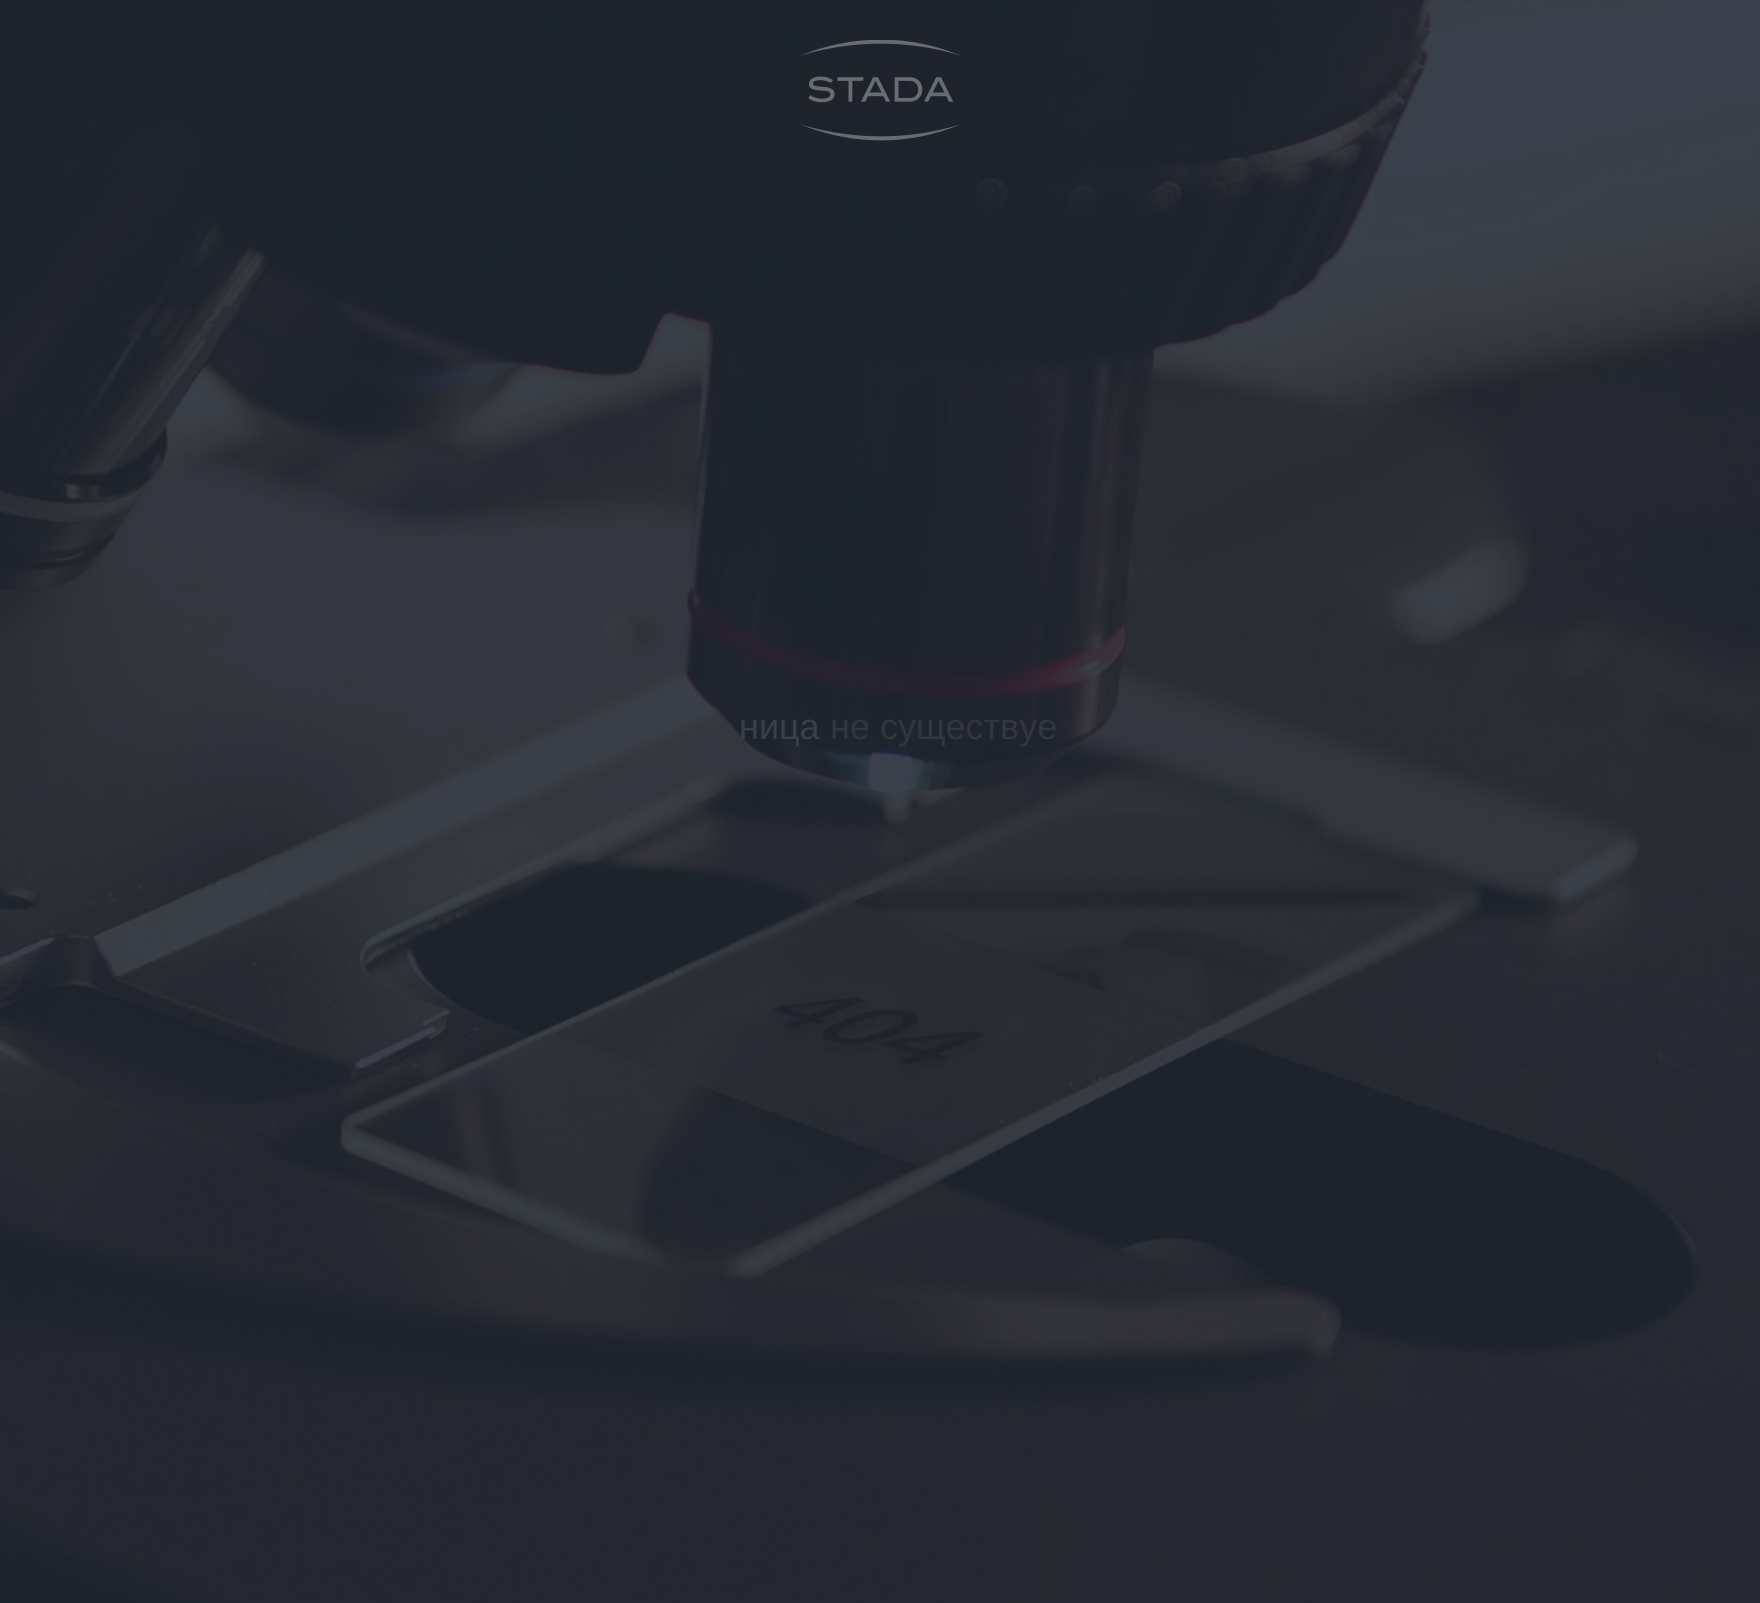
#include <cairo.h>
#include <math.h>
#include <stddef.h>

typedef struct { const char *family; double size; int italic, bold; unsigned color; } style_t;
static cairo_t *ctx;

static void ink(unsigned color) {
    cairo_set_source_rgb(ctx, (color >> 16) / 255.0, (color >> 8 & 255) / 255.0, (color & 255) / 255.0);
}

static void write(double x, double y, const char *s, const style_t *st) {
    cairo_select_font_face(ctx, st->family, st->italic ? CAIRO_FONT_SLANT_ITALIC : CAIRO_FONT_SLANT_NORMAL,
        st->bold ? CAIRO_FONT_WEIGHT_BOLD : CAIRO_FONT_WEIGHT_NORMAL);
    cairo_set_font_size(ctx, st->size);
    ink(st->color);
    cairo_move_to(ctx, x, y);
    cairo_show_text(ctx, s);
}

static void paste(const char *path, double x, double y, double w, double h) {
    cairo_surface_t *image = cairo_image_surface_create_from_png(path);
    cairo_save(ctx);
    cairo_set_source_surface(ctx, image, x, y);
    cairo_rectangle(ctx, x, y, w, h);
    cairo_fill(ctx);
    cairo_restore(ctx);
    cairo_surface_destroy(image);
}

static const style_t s1 = {"Liberation Sans", 36, 0, 0, 0x3b3f48};
static const style_t s2 = {"Liberation Sans", 36, 0, 0, 0x323640};

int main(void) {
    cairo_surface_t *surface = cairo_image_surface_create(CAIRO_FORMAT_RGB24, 1760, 1603);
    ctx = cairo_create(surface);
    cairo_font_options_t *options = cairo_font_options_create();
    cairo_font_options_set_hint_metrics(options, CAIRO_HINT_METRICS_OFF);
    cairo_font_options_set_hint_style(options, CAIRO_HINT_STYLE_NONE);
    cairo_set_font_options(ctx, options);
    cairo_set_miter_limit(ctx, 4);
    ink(0x1c232c);
    cairo_paint(ctx);
    paste("pic1.png", 0, 0, 1760, 1603);
    paste("pic2.png", 800, 40, 161, 101);
    write(739, 739, "ница", &s1);
    write(830, 739, "не существуе", &s2);
    cairo_surface_write_to_png(surface, "screenshot.png");
    cairo_font_options_destroy(options);
    cairo_destroy(ctx);
    cairo_surface_destroy(surface);
    return 0;
}
